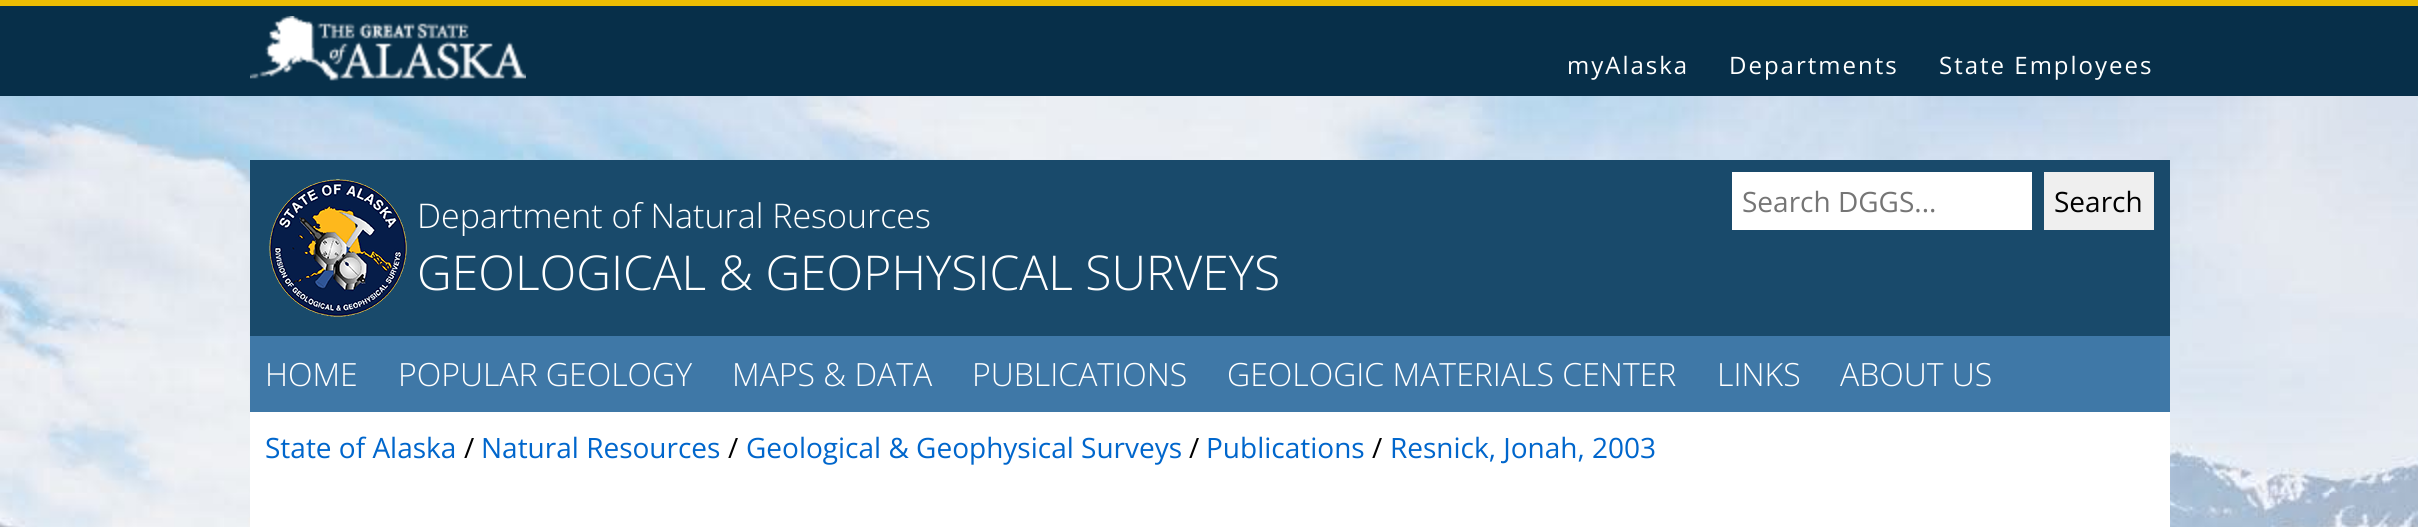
#include <cairo.h>
#include <math.h>
#include <stddef.h>

typedef struct { const char *family; double size; int italic, bold; unsigned color; } style_t;
static cairo_t *ctx;

static void ink(unsigned color) {
    cairo_set_source_rgb(ctx, (color >> 16) / 255.0, (color >> 8 & 255) / 255.0, (color & 255) / 255.0);
}

static void write(double x, double y, const char *s, const style_t *st) {
    cairo_select_font_face(ctx, st->family, st->italic ? CAIRO_FONT_SLANT_ITALIC : CAIRO_FONT_SLANT_NORMAL,
        st->bold ? CAIRO_FONT_WEIGHT_BOLD : CAIRO_FONT_WEIGHT_NORMAL);
    cairo_set_font_size(ctx, st->size);
    ink(st->color);
    cairo_move_to(ctx, x, y);
    cairo_show_text(ctx, s);
}

static void write_spaced(double x, double y, const char *s, double letter, double word) {
    cairo_move_to(ctx, x, y);
    while (*s) {
        char ch[5] = {0};
        int n = 0;
        do ch[n++] = *s++; while ((*s & 0xC0) == 0x80);
        cairo_show_text(ctx, ch);
        cairo_rel_move_to(ctx, letter + word * (*ch == ' '), 0);
    }
}

static void block(double x, double y, double w, double h, unsigned color) {
    ink(color);
    cairo_rectangle(ctx, x, y, w, h);
    cairo_fill(ctx);
}

static void paste(const char *path, double x, double y, double w, double h) {
    cairo_surface_t *image = cairo_image_surface_create_from_png(path);
    cairo_save(ctx);
    cairo_set_source_surface(ctx, image, x, y);
    cairo_rectangle(ctx, x, y, w, h);
    cairo_fill(ctx);
    cairo_restore(ctx);
    cairo_surface_destroy(image);
}

static const style_t s1 = {"Open Sans Light", 34, 0, 0, 0xffffff};
static const style_t s2 = {"Open Sans Light", 48, 0, 0, 0xffffff};
static const style_t s3 = {"Open Sans", 28, 0, 0, 0x757575};
static const style_t s4 = {"Open Sans", 28, 0, 0, 0x000000};
static const style_t s5 = {"Open Sans Light", 32, 0, 0, 0xffffff};
static const style_t s6 = {"Open Sans", 28, 0, 0, 0x0066cc};

int main(void) {
    cairo_surface_t *surface = cairo_image_surface_create(CAIRO_FORMAT_RGB24, 2418, 527);
    ctx = cairo_create(surface);
    cairo_font_options_t *options = cairo_font_options_create();
    cairo_font_options_set_hint_metrics(options, CAIRO_HINT_METRICS_OFF);
    cairo_font_options_set_hint_style(options, CAIRO_HINT_STYLE_NONE);
    cairo_set_font_options(ctx, options);
    cairo_set_miter_limit(ctx, 4);
    ink(0xffffff);
    cairo_paint(ctx);
    paste("pic1.png", 0, 96, 2418, 431);
    block(0, 6, 2418, 90, 0x072f49);
    block(0, 0, 2418, 6, 0xedbd03);
    paste("pic2.png", 250, 16, 276, 65);
    cairo_select_font_face(ctx, "Open Sans", CAIRO_FONT_SLANT_NORMAL, CAIRO_FONT_WEIGHT_NORMAL);
    cairo_set_font_size(ctx, 24);
    ink(0xffffff);
    write_spaced(1567, 74, "myAlaska", 2, 0);
    write_spaced(1729, 74, "Departments", 2, 0);
    write_spaced(1939, 74, "State Employees", 2, 0);
    block(250, 160, 1920, 176, 0x194a6b);
    paste("pic3.png", 269, 179, 138, 138);
    write(417, 228, "Department of Natural Resources", &s1);
    write(417, 290, "GEOLOGICAL & GEOPHYSICAL SURVEYS", &s2);
    block(1732, 172, 300, 58, 0xffffff);
    write(1742, 212, "Search DGGS...", &s3);
    block(2044, 172, 110, 58, 0xefefef);
    write(2054, 212, "Search", &s4);
    block(250, 336, 1920, 76, 0x3f78a7);
    write(265, 386, "HOME", &s5);
    write(398, 386, "POPULAR GEOLOGY", &s5);
    write(732, 386, "MAPS & DATA", &s5);
    write(972, 386, "PUBLICATIONS", &s5);
    write(1227, 386, "GEOLOGIC MATERIALS CENTER", &s5);
    write(1717, 386, "LINKS", &s5);
    write(1840, 386, "ABOUT US", &s5);
    block(250, 412, 1920, 115, 0xffffff);
    write(265, 458, "State of Alaska", &s6);
    write(464, 458, "/", &s4);
    write(481, 458, "Natural Resources", &s6);
    write(728, 458, "/", &s4);
    write(746, 458, "Geological & Geophysical Surveys", &s6);
    write(1189, 458, "/", &s4);
    write(1206, 458, "Publications", &s6);
    write(1372, 458, "/", &s4);
    write(1390, 458, "Resnick, Jonah, 2003", &s6);
    cairo_surface_write_to_png(surface, "screenshot.png");
    cairo_font_options_destroy(options);
    cairo_destroy(ctx);
    cairo_surface_destroy(surface);
    return 0;
}
